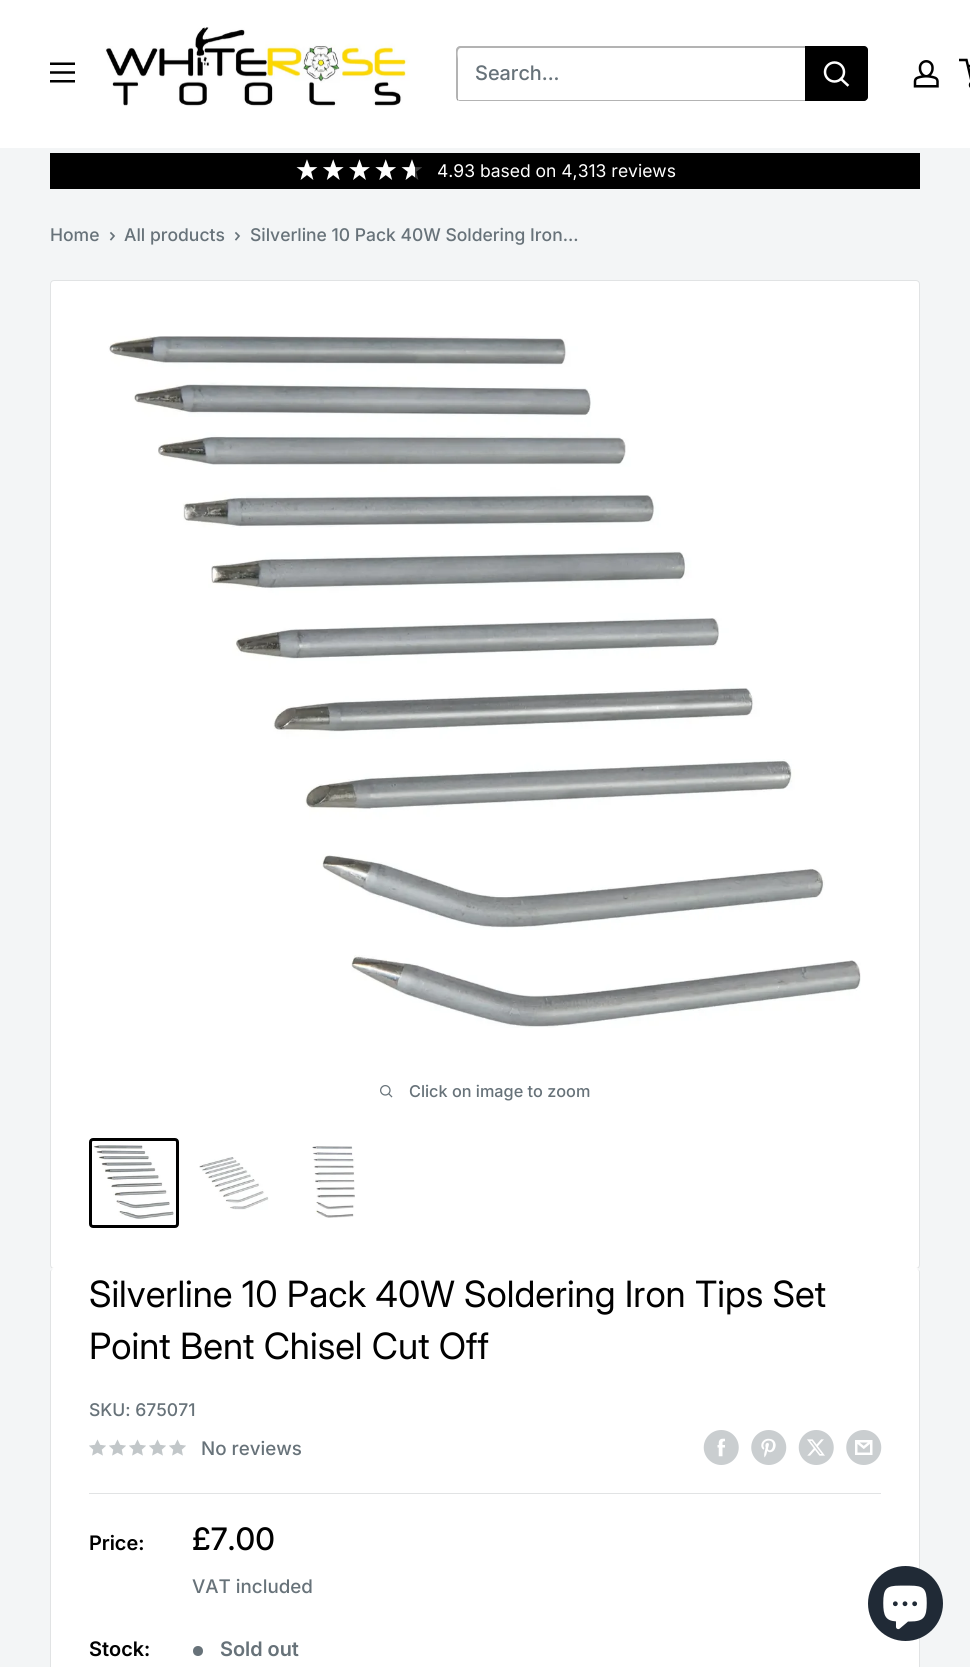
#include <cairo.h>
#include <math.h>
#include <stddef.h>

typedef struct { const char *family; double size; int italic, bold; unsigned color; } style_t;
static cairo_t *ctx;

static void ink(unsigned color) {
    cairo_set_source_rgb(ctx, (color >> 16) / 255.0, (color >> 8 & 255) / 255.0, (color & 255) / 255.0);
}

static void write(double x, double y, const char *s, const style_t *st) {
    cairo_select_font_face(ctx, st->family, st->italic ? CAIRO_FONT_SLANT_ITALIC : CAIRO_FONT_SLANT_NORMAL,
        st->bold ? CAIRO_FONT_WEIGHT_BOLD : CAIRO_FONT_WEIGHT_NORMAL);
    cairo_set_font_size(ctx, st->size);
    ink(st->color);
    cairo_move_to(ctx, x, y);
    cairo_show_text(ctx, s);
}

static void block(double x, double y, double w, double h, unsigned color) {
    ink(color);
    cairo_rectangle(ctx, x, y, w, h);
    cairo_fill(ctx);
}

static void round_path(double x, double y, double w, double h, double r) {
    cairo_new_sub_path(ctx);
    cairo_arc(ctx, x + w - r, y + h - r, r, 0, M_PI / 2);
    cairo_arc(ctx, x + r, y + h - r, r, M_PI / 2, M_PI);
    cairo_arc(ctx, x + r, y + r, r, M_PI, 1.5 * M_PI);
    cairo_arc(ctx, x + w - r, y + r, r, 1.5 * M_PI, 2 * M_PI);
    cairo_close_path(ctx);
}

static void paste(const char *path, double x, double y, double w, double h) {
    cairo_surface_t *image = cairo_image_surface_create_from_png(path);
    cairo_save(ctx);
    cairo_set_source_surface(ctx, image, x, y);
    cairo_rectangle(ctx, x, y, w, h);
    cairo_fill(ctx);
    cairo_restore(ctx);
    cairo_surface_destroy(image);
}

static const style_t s1 = {"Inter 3 Medium", 20, 0, 0, 0x677279};
static const style_t s2 = {"Inter", 17.5, 0, 0, 0xffffff};
static const style_t s3 = {"Inter Medium", 17.5, 0, 0, 0x677279};
static const style_t s4 = {"Inter Medium", 16.25, 0, 0, 0x677279};
static const style_t s5 = {"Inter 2", 36.25, 0, 0, 0x000000};
static const style_t s6 = {"Inter Medium", 18.75, 0, 0, 0x677279};
static const style_t s7 = {"Inter SemiBold", 20, 0, 0, 0x000000};
static const style_t s8 = {"Inter 2 Medium", 31, 0, 0, 0x000000};
static const style_t s9 = {"Inter SemiBold", 20, 0, 0, 0x677279};

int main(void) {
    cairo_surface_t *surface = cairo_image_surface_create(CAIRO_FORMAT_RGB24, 970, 1667);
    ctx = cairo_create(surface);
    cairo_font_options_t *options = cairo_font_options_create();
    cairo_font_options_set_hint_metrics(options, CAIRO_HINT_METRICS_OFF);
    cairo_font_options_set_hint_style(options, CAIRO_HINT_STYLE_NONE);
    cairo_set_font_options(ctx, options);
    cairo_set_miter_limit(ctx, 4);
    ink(0xf3f5f6);
    cairo_paint(ctx);
    block(0, 0, 970, 148, 0xffffff);
    paste("pic1.png", 50, 62, 25, 21);
    paste("pic2.png", 105, 27, 305, 80);
    ink(0xb3b3b3);
    cairo_new_path(ctx);
    cairo_move_to(ctx, 457, 99);
    cairo_curve_to(ctx, 457, 100, 459, 101, 460, 101);
    cairo_line_to(ctx, 864, 101);
    cairo_curve_to(ctx, 866, 101, 868, 99, 868, 97);
    cairo_line_to(ctx, 868, 50);
    cairo_curve_to(ctx, 868, 48, 867, 47, 865, 46);
    cairo_curve_to(ctx, 866, 47, 866, 48, 866, 49);
    cairo_line_to(ctx, 866, 96);
    cairo_curve_to(ctx, 866, 98, 865, 100, 862, 100);
    cairo_line_to(ctx, 459, 100);
    cairo_close_path(ctx);
    cairo_fill(ctx);
    cairo_set_source_rgba(ctx, 0, 0, 0, 0.3);
    cairo_new_path(ctx);
    cairo_move_to(ctx, 461, 48);
    cairo_line_to(ctx, 865, 48);
    cairo_line_to(ctx, 868, 49);
    cairo_curve_to(ctx, 867, 47, 866, 46, 864, 46);
    cairo_line_to(ctx, 460, 46);
    cairo_curve_to(ctx, 458, 46, 456, 48, 456, 50);
    cairo_line_to(ctx, 456, 97);
    cairo_curve_to(ctx, 456, 99, 457, 100, 458, 101);
    cairo_line_to(ctx, 458, 59);
    cairo_curve_to(ctx, 458, 57, 456, 48, 461, 48);
    cairo_close_path(ctx);
    cairo_fill(ctx);
    write(475, 80, "Search...", &s1);
    ink(0x000000);
    cairo_new_path(ctx);
    cairo_move_to(ctx, 805, 46);
    cairo_line_to(ctx, 864, 46);
    cairo_curve_to(ctx, 866, 46, 868, 48, 868, 50);
    cairo_line_to(ctx, 868, 97);
    cairo_curve_to(ctx, 868, 99, 866, 101, 864, 101);
    cairo_line_to(ctx, 805, 101);
    cairo_close_path(ctx);
    cairo_fill(ctx);
    cairo_new_path(ctx);
    cairo_move_to(ctx, 847.5, 85);
    cairo_line_to(ctx, 841, 79);
    ink(0xffffff);
    cairo_set_line_width(ctx, 2.5);
    cairo_set_line_cap(ctx, CAIRO_LINE_CAP_SQUARE);
    cairo_stroke(ctx);
    cairo_arc(ctx, 834.5, 72, 9.5, 0, 2 * M_PI);
    cairo_set_line_cap(ctx, CAIRO_LINE_CAP_BUTT);
    cairo_stroke(ctx);
    paste("pic3.png", 913, 60, 26, 28);
    cairo_arc(ctx, 972.5, 85, 2.5, 0, 2 * M_PI);
    ink(0x000000);
    cairo_stroke(ctx);
    cairo_new_path(ctx);
    cairo_move_to(ctx, 968, 66);
    cairo_line_to(ctx, 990.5, 66);
    cairo_line_to(ctx, 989, 79);
    cairo_line_to(ctx, 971, 79);
    cairo_line_to(ctx, 966.5, 60);
    cairo_line_to(ctx, 959, 60);
    cairo_stroke(ctx);
    block(50, 153, 870, 36, 0x000000);
    paste("pic4.png", 296, 159, 22, 21);
    paste("pic5.png", 323, 159, 21, 21);
    paste("pic6.png", 349, 159, 21, 21);
    paste("pic7.png", 375, 159, 21, 21);
    paste("pic8.png", 401, 159, 21, 21);
    write(437, 177, "4.93 based on 4,313 reviews", &s2);
    write(50, 241, "Home", &s3);
    cairo_new_path(ctx);
    cairo_move_to(ctx, 111, 233);
    cairo_line_to(ctx, 114, 236);
    cairo_line_to(ctx, 111, 239.5);
    cairo_set_line_width(ctx, 1.7);
    cairo_set_line_cap(ctx, CAIRO_LINE_CAP_SQUARE);
    cairo_stroke(ctx);
    write(124, 241, "All products", &s3);
    cairo_new_path(ctx);
    cairo_move_to(ctx, 236, 233);
    cairo_line_to(ctx, 239, 236);
    cairo_line_to(ctx, 236, 239.5);
    cairo_stroke(ctx);
    write(250, 241, "Silverline 10 Pack 40W Soldering Iron...", &s3);
    ink(0xffffff);
    round_path(50.5, 280.5, 869, 988, 3.5);
    cairo_fill_preserve(ctx);
    ink(0xe1e3e4);
    cairo_set_line_width(ctx, 1);
    cairo_set_line_cap(ctx, CAIRO_LINE_CAP_BUTT);
    cairo_stroke(ctx);
    paste("pic9.png", 108, 336, 753, 692);
    paste("pic10.png", 380, 1085, 13, 13);
    write(409, 1097, "Click on image to zoom", &s4);
    round_path(90.5, 1139.5, 87, 87, 2.5);
    ink(0x000000);
    cairo_set_line_width(ctx, 3);
    cairo_stroke(ctx);
    paste("pic11.png", 93, 1145, 81, 74);
    paste("pic12.png", 199, 1157, 70, 53);
    paste("pic13.png", 312, 1146, 43, 72);
    ink(0xffffff);
    cairo_new_path(ctx);
    cairo_move_to(ctx, 54, 1268);
    cairo_curve_to(ctx, 51, 1268, 50, 1270, 50, 1272);
    cairo_curve_to(ctx, 50, 1270, 52, 1269, 54, 1269);
    cairo_line_to(ctx, 916, 1269);
    cairo_curve_to(ctx, 918, 1269, 920, 1270, 920, 1272);
    cairo_curve_to(ctx, 920, 1270, 919, 1268, 916, 1268);
    cairo_close_path(ctx);
    cairo_fill(ctx);
    round_path(50, 1269, 870, 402, 4);
    cairo_fill(ctx);
    ink(0xe1e3e4);
    cairo_set_fill_rule(ctx, CAIRO_FILL_RULE_EVEN_ODD);
    cairo_new_path(ctx);
    cairo_move_to(ctx, 54, 1269);
    cairo_line_to(ctx, 916, 1269);
    cairo_curve_to(ctx, 918, 1269, 920, 1270, 920, 1272);
    cairo_line_to(ctx, 920, 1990);
    cairo_curve_to(ctx, 920, 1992, 918, 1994, 916, 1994);
    cairo_line_to(ctx, 54, 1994);
    cairo_curve_to(ctx, 52, 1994, 50, 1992, 50, 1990);
    cairo_line_to(ctx, 50, 1272);
    cairo_curve_to(ctx, 50, 1270, 52, 1269, 54, 1269);
    cairo_close_path(ctx);
    cairo_move_to(ctx, 54, 1269);
    cairo_line_to(ctx, 916, 1269);
    cairo_curve_to(ctx, 918, 1269, 919, 1270, 919, 1272);
    cairo_line_to(ctx, 919, 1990);
    cairo_curve_to(ctx, 919, 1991, 918, 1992, 916, 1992);
    cairo_line_to(ctx, 54, 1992);
    cairo_curve_to(ctx, 52, 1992, 51, 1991, 51, 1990);
    cairo_line_to(ctx, 51, 1272);
    cairo_curve_to(ctx, 51, 1270, 52, 1269, 54, 1269);
    cairo_close_path(ctx);
    cairo_fill(ctx);
    write(89, 1307, "Silverline 10 Pack 40W Soldering Iron Tips Set", &s5);
    write(89, 1359, "Point Bent Chisel Cut Off", &s5);
    write(89, 1416, "SKU: 675071", &s3);
    paste("pic14.png", 89, 1439, 17, 17);
    paste("pic14.png", 109, 1439, 17, 17);
    paste("pic14.png", 129, 1439, 17, 17);
    paste("pic14.png", 149, 1439, 17, 17);
    paste("pic14.png", 169, 1439, 17, 17);
    write(201, 1455, "No reviews", &s6);
    paste("pic15.png", 703, 1430, 36, 35);
    paste("pic16.png", 751, 1430, 36, 35);
    paste("pic17.png", 798, 1430, 36, 35);
    paste("pic18.png", 846, 1430, 36, 35);
    block(89, 1493, 792, 1, 0xe1e3e4);
    write(89, 1550, "Price:", &s7);
    write(192, 1550, "£7.00", &s8);
    write(192, 1593, "VAT included", &s6);
    write(89, 1656, "Stock:", &s7);
    ink(0x677279);
    cairo_new_path(ctx);
    cairo_arc(ctx, 198, 1651, 5, 0, 2 * M_PI);
    cairo_fill(ctx);
    write(220, 1656, "Sold out", &s9);
    ink(0x202a36);
    cairo_new_path(ctx);
    cairo_arc(ctx, 905.5, 1603.5, 37.5, 0, 2 * M_PI);
    cairo_fill(ctx);
    paste("pic19.png", 883, 1585, 44, 45);
    cairo_surface_write_to_png(surface, "screenshot.png");
    cairo_font_options_destroy(options);
    cairo_destroy(ctx);
    cairo_surface_destroy(surface);
    return 0;
}
